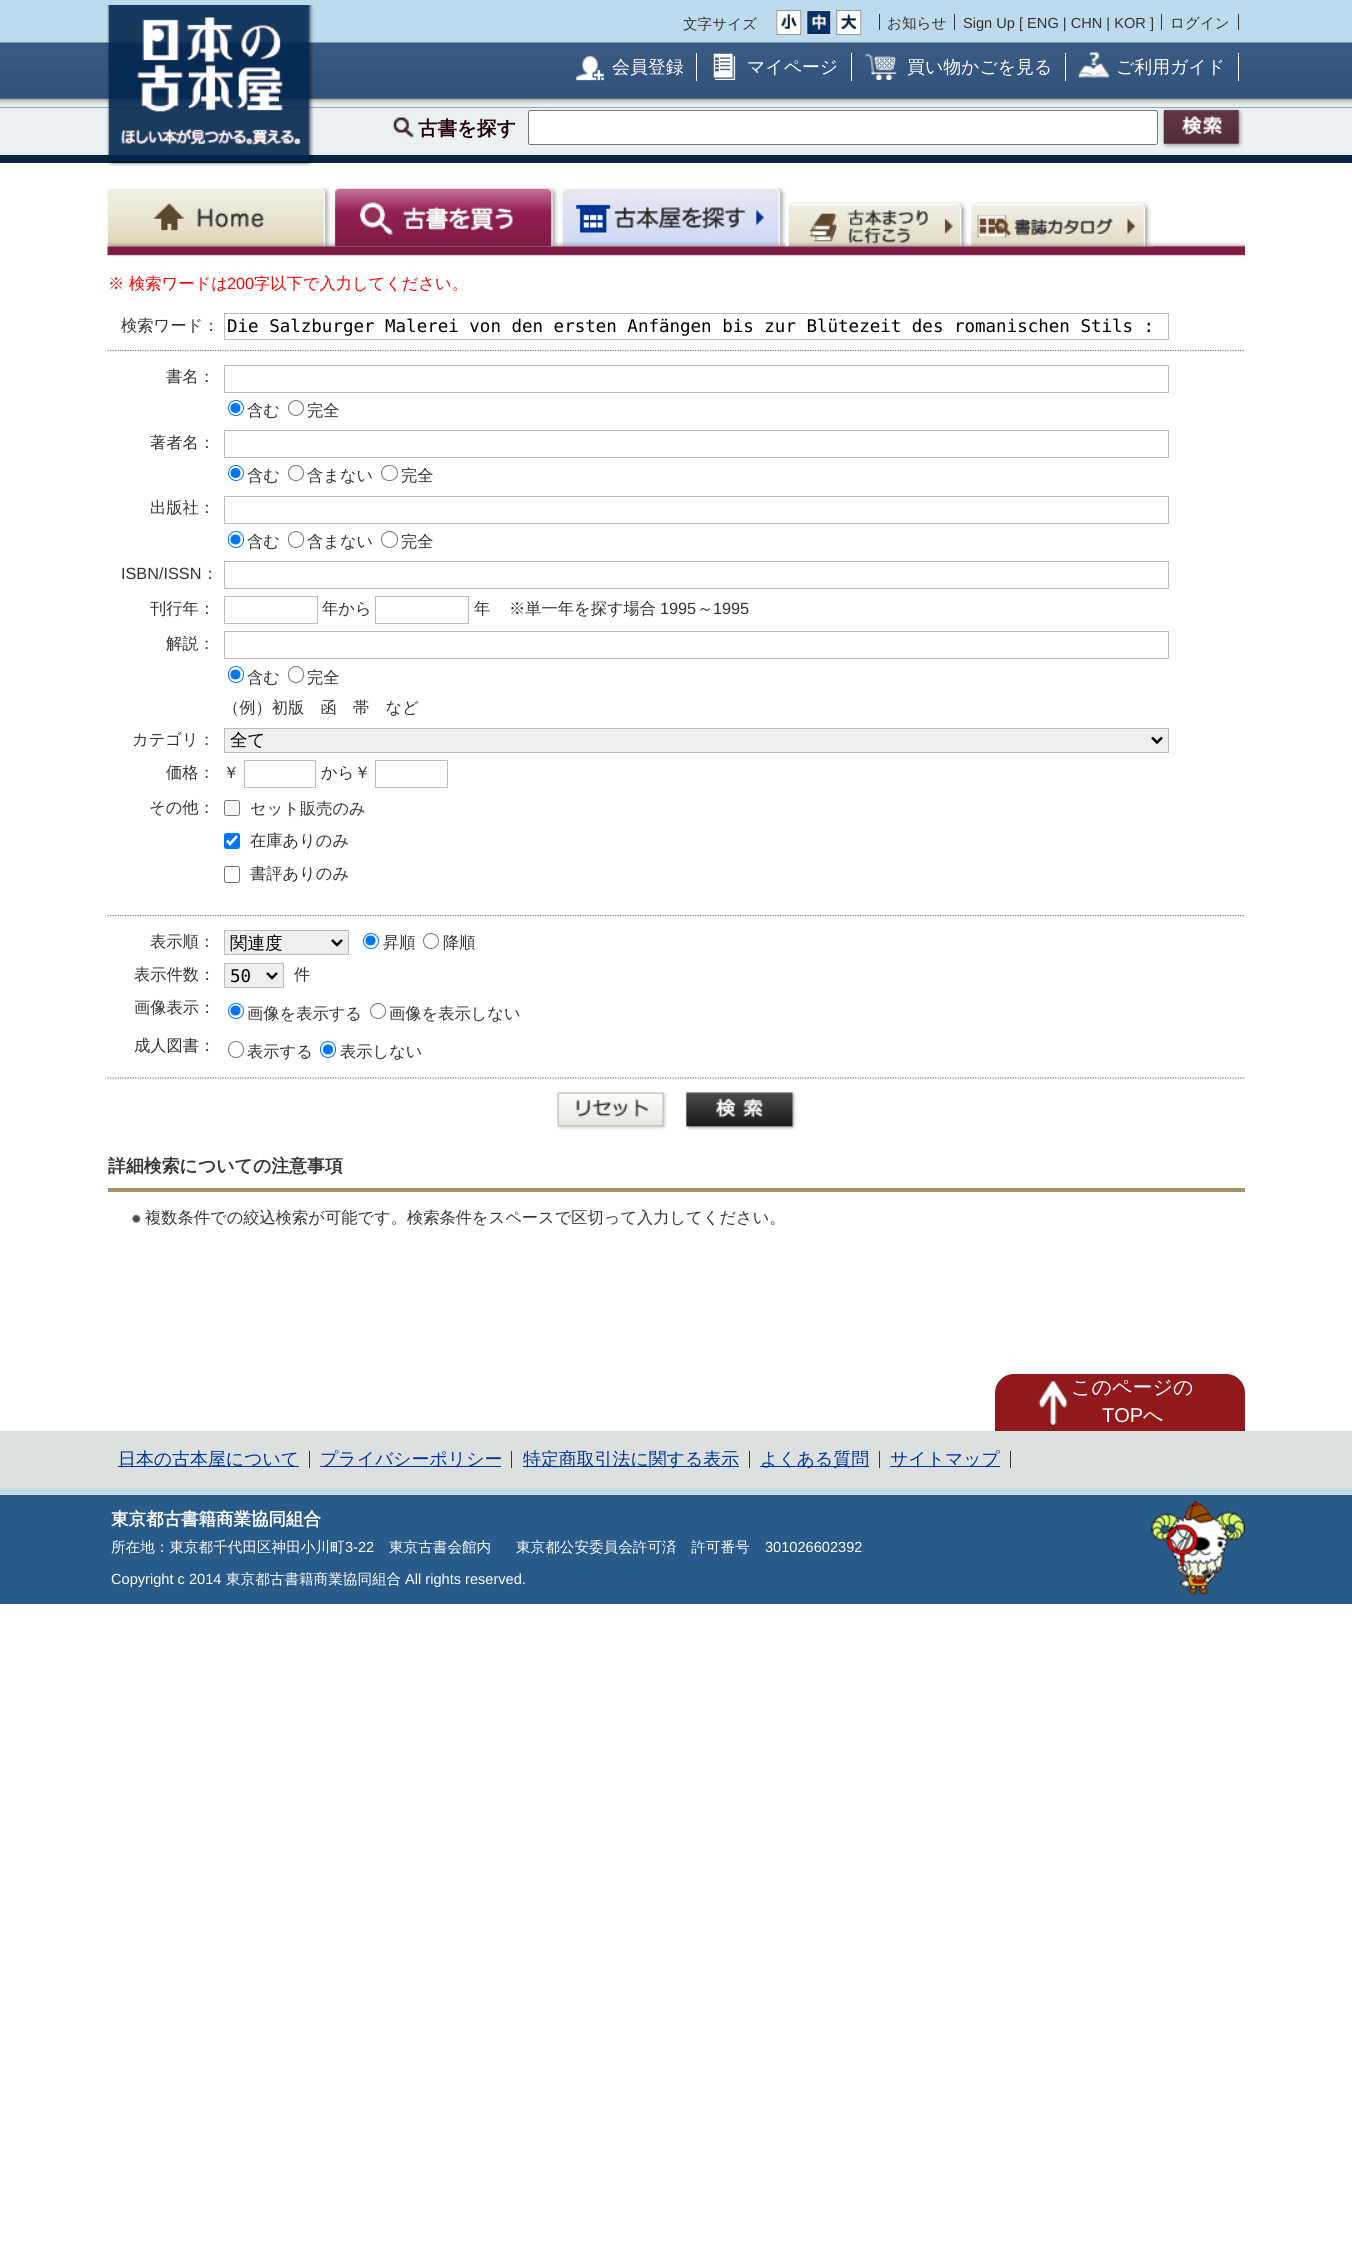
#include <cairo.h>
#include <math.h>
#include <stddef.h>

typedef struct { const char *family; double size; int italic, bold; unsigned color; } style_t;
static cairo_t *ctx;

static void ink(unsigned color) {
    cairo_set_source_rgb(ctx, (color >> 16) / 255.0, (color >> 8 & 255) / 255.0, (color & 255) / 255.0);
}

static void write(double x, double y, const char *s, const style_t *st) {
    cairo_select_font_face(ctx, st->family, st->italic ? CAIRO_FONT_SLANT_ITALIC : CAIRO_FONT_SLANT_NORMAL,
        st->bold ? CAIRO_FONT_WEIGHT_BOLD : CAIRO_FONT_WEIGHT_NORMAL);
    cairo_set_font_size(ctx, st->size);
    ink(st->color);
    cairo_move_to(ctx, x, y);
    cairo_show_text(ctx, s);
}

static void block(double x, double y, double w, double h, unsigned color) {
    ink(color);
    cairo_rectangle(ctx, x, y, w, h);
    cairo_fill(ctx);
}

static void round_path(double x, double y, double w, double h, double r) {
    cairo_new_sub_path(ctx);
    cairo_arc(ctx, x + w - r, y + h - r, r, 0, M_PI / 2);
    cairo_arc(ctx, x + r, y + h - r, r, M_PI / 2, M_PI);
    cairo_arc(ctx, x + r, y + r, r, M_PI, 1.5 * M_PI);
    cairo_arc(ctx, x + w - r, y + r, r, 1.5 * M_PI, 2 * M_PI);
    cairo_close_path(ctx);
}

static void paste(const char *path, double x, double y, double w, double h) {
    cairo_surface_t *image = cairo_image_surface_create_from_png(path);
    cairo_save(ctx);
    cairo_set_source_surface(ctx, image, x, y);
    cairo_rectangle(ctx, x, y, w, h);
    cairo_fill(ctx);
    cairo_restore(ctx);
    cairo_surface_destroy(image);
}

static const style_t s1 = {"WenQuanYi Zen Hei Medium", 14.6, 0, 0, 0x333333};
static const style_t s2 = {"Liberation Sans", 14.6, 0, 0, 0x333333};
static const style_t s3 = {"WenQuanYi Zen Hei Medium", 17.9, 0, 0, 0xffffff};
static const style_t s4 = {"WenQuanYi Zen Hei", 19.5, 0, 1, 0x26000c};
static const style_t s5 = {"WenQuanYi Zen Hei Medium", 16.25, 0, 0, 0xff0000};
static const style_t s6 = {"Liberation Sans", 16.25, 0, 0, 0xff0000};
static const style_t s7 = {"WenQuanYi Zen Hei Medium", 16.25, 0, 0, 0x333333};
static const style_t s8 = {"DejaVu Sans Mono", 17.5, 0, 0, 0x000000};
static const style_t s9 = {"Liberation Sans", 16.25, 0, 0, 0x333333};
static const style_t s10 = {"WenQuanYi Zen Hei Medium", 17.5, 0, 0, 0x000000};
static const style_t s11 = {"WenQuanYi Zen Hei", 17.9, 0, 1, 0x333333};
static const style_t s12 = {"WenQuanYi Zen Hei Medium", 20, 0, 0, 0xffffff};
static const style_t s13 = {"Liberation Sans", 20, 0, 0, 0xffffff};
static const style_t s14 = {"WenQuanYi Zen Hei Medium", 17.9, 0, 0, 0x003399};
static const style_t s15 = {"WenQuanYi Zen Hei", 17.5, 0, 1, 0xffffff};
static const style_t s16 = {"WenQuanYi Zen Hei Medium", 14.6, 0, 0, 0xffffff};
static const style_t s17 = {"Liberation Sans", 14.6, 0, 0, 0xffffff};

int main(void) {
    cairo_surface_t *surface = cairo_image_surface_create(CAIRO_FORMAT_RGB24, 1352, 2258);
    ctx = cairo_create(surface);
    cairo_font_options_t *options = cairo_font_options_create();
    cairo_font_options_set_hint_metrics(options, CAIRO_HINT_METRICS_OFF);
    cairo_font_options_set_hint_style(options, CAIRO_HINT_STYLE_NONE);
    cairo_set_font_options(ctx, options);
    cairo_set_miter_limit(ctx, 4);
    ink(0xffffff);
    cairo_paint(ctx);
    block(0, 0, 1352, 43, 0xbddbed);
    block(0, 107, 1352, 1, 0x285a8a);
    paste("pic5.png", 0, 42, 1352, 66);
    block(0, 108, 1352, 47, 0xebf0f3);
    block(0, 155, 1352, 8, 0x092642);
    paste("pic1.png", 106, 5, 208, 161);
    write(683, 29, "文字サイズ", &s1);
    paste("pic2.png", 776, 10, 26, 25);
    paste("pic3.png", 806, 10, 26, 25);
    paste("pic4.png", 836, 10, 26, 25);
    block(879, 14, 1, 16, 0x333333);
    write(887, 28, "お知らせ", &s1);
    block(954, 14, 1, 16, 0x333333);
    write(963, 28, "Sign Up [ ENG | CHN | KOR ]", &s2);
    block(1238, 14, 1, 16, 0x333333);
    block(1161, 14, 1, 16, 0x333333);
    write(1170, 28, "ログイン", &s1);
    paste("pic6.png", 576, 56, 28, 25);
    block(696, 53, 1, 28, 0xffffff);
    write(612, 73, "会員登録", &s3);
    paste("pic7.png", 713, 53, 23, 27);
    block(851, 53, 1, 28, 0xffffff);
    write(747, 73, "マイページ", &s3);
    paste("pic8.png", 865, 53, 32, 27);
    block(1065, 53, 1, 28, 0xffffff);
    write(907, 73, "買い物かごを見る", &s3);
    paste("pic9.png", 1078, 52, 31, 26);
    block(1238, 53, 1, 28, 0xffffff);
    write(1116, 73, "ご利用ガイド", &s3);
    paste("pic10.png", 393, 117, 21, 21);
    write(418, 135, "古書を探す", &s4);
    ink(0xffffff);
    round_path(528.5, 110.5, 629, 34, 2);
    cairo_fill_preserve(ctx);
    ink(0x767676);
    cairo_set_line_width(ctx, 1);
    cairo_stroke(ctx);
    paste("pic11.png", 1161, 108, 83, 41);
    paste("pic12.png", 107, 242, 1138, 15);
    paste("pic13.png", 107, 187, 227, 60);
    paste("pic14.png", 333, 187, 227, 60);
    paste("pic15.png", 560, 187, 227, 60);
    block(786, 241, 184, 5, 0xffffff);
    paste("pic16.png", 786, 201, 184, 46);
    block(970, 242, 184, 4, 0xffffff);
    paste("pic17.png", 970, 201, 184, 46);
    write(108, 289, "※ 検索ワードは", &s5);
    write(227, 289, "200", &s6);
    write(254, 289, "字以下で入力してください。", &s5);
    write(121, 331, "検索ワード：", &s7);
    cairo_rectangle(ctx, 224.5, 313.5, 944, 26);
    ink(0xbbbdc2);
    cairo_stroke(ctx);
    write(227, 332, "Die Salzburger Malerei von den ersten Anfängen bis zur Blütezeit des romanischen Stils :", &s8);
    cairo_new_path(ctx);
    cairo_move_to(ctx, 107.5, 350.5);
    cairo_line_to(ctx, 1245, 350.5);
    ink(0x7c7e7e);
    cairo_set_line_width(ctx, 1.2);
    cairo_set_dash(ctx, (double[]){1.25, 1.25}, 2, 0);
    cairo_stroke(ctx);
    cairo_new_path(ctx);
    cairo_move_to(ctx, 107.5, 915.5);
    cairo_line_to(ctx, 1245, 915.5);
    cairo_stroke(ctx);
    write(166, 382, "書名：", &s7);
    cairo_rectangle(ctx, 224.5, 365.5, 944, 27);
    ink(0xbbbdc2);
    cairo_set_line_width(ctx, 1);
    cairo_set_dash(ctx, NULL, 0, 0);
    cairo_stroke(ctx);
    cairo_arc(ctx, 236, 408, 7.5, 0, 2 * M_PI);
    ink(0x0075ff);
    cairo_stroke(ctx);
    cairo_arc(ctx, 235.5, 408, 5, 0, 2 * M_PI);
    cairo_fill(ctx);
    write(247, 416, "含む", &s7);
    cairo_new_path(ctx);
    cairo_arc(ctx, 296, 408, 7.5, 0, 2 * M_PI);
    ink(0x767676);
    cairo_stroke(ctx);
    write(307, 416, "完全", &s7);
    write(150, 448, "著者名：", &s7);
    cairo_rectangle(ctx, 224.5, 430.5, 944, 27);
    ink(0xbbbdc2);
    cairo_stroke(ctx);
    cairo_arc(ctx, 236, 473, 7.5, 0, 2 * M_PI);
    ink(0x0075ff);
    cairo_stroke(ctx);
    cairo_arc(ctx, 235.5, 473, 5, 0, 2 * M_PI);
    cairo_fill(ctx);
    write(247, 481, "含む", &s7);
    cairo_new_path(ctx);
    cairo_arc(ctx, 296, 473, 7.5, 0, 2 * M_PI);
    ink(0x767676);
    cairo_stroke(ctx);
    write(307, 481, "含まない", &s7);
    round_path(381.5, 465.5, 16, 15, 7.5);
    ink(0x767676);
    cairo_stroke(ctx);
    write(401, 481, "完全", &s7);
    write(150, 513, "出版社：", &s7);
    cairo_rectangle(ctx, 224.5, 496.5, 944, 27);
    ink(0xbbbdc2);
    cairo_stroke(ctx);
    round_path(228.5, 531.5, 15, 16, 7.5);
    ink(0x0075ff);
    cairo_stroke(ctx);
    cairo_arc(ctx, 235.5, 539.5, 5, 0, 2 * M_PI);
    cairo_fill(ctx);
    write(247, 547, "含む", &s7);
    round_path(288.5, 531.5, 15, 16, 7.5);
    ink(0x767676);
    cairo_stroke(ctx);
    write(307, 547, "含まない", &s7);
    cairo_new_path(ctx);
    cairo_arc(ctx, 389.5, 539.5, 8, 0, 2 * M_PI);
    ink(0x767676);
    cairo_stroke(ctx);
    write(401, 547, "完全", &s7);
    write(121, 579, "ISBN/ISSN", &s9);
    write(202, 579, "：", &s7);
    cairo_rectangle(ctx, 224.5, 561.5, 944, 27);
    ink(0xbbbdc2);
    cairo_stroke(ctx);
    write(150, 614, "刊行年：", &s7);
    cairo_rectangle(ctx, 224.5, 596.5, 93, 27);
    ink(0xbbbdc2);
    cairo_stroke(ctx);
    write(322, 614, "年から", &s7);
    cairo_rectangle(ctx, 375.5, 596.5, 93, 27);
    ink(0xbbbdc2);
    cairo_stroke(ctx);
    write(474, 614, "年", &s7);
    write(509, 614, "※単一年を探す場合", &s7);
    write(660, 614, "1995", &s9);
    write(697, 614, "～", &s7);
    write(713, 614, "1995", &s9);
    write(166, 649, "解説：", &s7);
    cairo_rectangle(ctx, 224.5, 631.5, 944, 27);
    ink(0xbbbdc2);
    cairo_stroke(ctx);
    round_path(228.5, 666.5, 15, 16, 7.5);
    ink(0x0075ff);
    cairo_stroke(ctx);
    cairo_arc(ctx, 235.5, 674.5, 5, 0, 2 * M_PI);
    cairo_fill(ctx);
    write(247, 683, "含む", &s7);
    round_path(288.5, 666.5, 15, 16, 7.5);
    ink(0x767676);
    cairo_stroke(ctx);
    write(307, 683, "完全", &s7);
    write(223, 713, "（例）初版　函　帯　など", &s7);
    write(132, 745, "カテゴリ：", &s7);
    ink(0xefefef);
    cairo_rectangle(ctx, 224.5, 728.5, 944, 24);
    cairo_fill_preserve(ctx);
    ink(0xbbbdc2);
    cairo_stroke(ctx);
    cairo_new_path(ctx);
    cairo_move_to(ctx, 1152, 737.5);
    cairo_line_to(ctx, 1157, 742.5);
    cairo_line_to(ctx, 1162, 737.5);
    ink(0x000000);
    cairo_set_line_width(ctx, 2.5);
    cairo_stroke(ctx);
    write(230, 746, "全て", &s10);
    write(166, 778, "価格：", &s7);
    write(223, 778, "￥", &s7);
    cairo_rectangle(ctx, 244.5, 760.5, 71, 27);
    ink(0xbbbdc2);
    cairo_set_line_width(ctx, 1);
    cairo_stroke(ctx);
    write(321, 778, "から￥", &s7);
    cairo_rectangle(ctx, 375.5, 760.5, 72, 27);
    ink(0xbbbdc2);
    cairo_stroke(ctx);
    write(149, 813, "その他：", &s7);
    round_path(224.5, 800.5, 15, 15, 2);
    ink(0x767676);
    cairo_stroke(ctx);
    write(250, 814, "セット販売のみ", &s7);
    ink(0x0075ff);
    round_path(224, 833, 16, 16, 2.5);
    cairo_fill(ctx);
    cairo_new_path(ctx);
    cairo_move_to(ctx, 227, 840.5);
    cairo_line_to(ctx, 230, 844);
    cairo_line_to(ctx, 237, 836);
    ink(0xffffff);
    cairo_set_line_width(ctx, 2.6);
    cairo_stroke(ctx);
    write(250, 846, "在庫ありのみ", &s7);
    round_path(224.5, 866.5, 15, 16, 2);
    ink(0x767676);
    cairo_set_line_width(ctx, 1);
    cairo_stroke(ctx);
    write(250, 879, "書評ありのみ", &s7);
    cairo_new_path(ctx);
    cairo_move_to(ctx, 107.5, 1078);
    cairo_line_to(ctx, 1245, 1078);
    ink(0x7c7e7e);
    cairo_set_line_width(ctx, 1.2);
    cairo_set_dash(ctx, (double[]){1.25, 1.25}, 2, 0);
    cairo_stroke(ctx);
    write(150, 947, "表示順：", &s7);
    ink(0xefefef);
    cairo_rectangle(ctx, 224.5, 930.5, 124, 24);
    cairo_fill_preserve(ctx);
    ink(0xbbbdc2);
    cairo_set_line_width(ctx, 1);
    cairo_set_dash(ctx, NULL, 0, 0);
    cairo_stroke(ctx);
    cairo_new_path(ctx);
    cairo_move_to(ctx, 332, 940);
    cairo_line_to(ctx, 337, 945);
    cairo_line_to(ctx, 342, 940);
    ink(0x000000);
    cairo_set_line_width(ctx, 2.5);
    cairo_stroke(ctx);
    write(230, 949, "関連度", &s10);
    cairo_new_path(ctx);
    cairo_arc(ctx, 371, 941, 7.5, 0, 2 * M_PI);
    ink(0x0075ff);
    cairo_set_line_width(ctx, 1);
    cairo_stroke(ctx);
    cairo_arc(ctx, 370.5, 940.5, 5, 0, 2 * M_PI);
    cairo_fill(ctx);
    write(383, 948, "昇順", &s7);
    cairo_new_path(ctx);
    cairo_arc(ctx, 431, 941, 7.5, 0, 2 * M_PI);
    ink(0x767676);
    cairo_stroke(ctx);
    write(443, 948, "降順", &s7);
    write(134, 980, "表示件数：", &s7);
    ink(0xefefef);
    cairo_rectangle(ctx, 224.5, 963.5, 59, 24);
    cairo_fill_preserve(ctx);
    ink(0xbbbdc2);
    cairo_stroke(ctx);
    cairo_new_path(ctx);
    cairo_move_to(ctx, 267, 973);
    cairo_line_to(ctx, 272, 978);
    cairo_line_to(ctx, 277, 973);
    ink(0x000000);
    cairo_set_line_width(ctx, 2.5);
    cairo_stroke(ctx);
    write(230, 982, "50", &s8);
    write(294, 980, "件", &s7);
    write(134, 1013, "画像表示：", &s7);
    cairo_new_path(ctx);
    cairo_arc(ctx, 236, 1011, 7.5, 0, 2 * M_PI);
    ink(0x0075ff);
    cairo_set_line_width(ctx, 1);
    cairo_stroke(ctx);
    cairo_arc(ctx, 235.5, 1010.5, 5, 0, 2 * M_PI);
    cairo_fill(ctx);
    write(247, 1019, "画像を表示する", &s7);
    cairo_new_path(ctx);
    cairo_arc(ctx, 378, 1011, 7.5, 0, 2 * M_PI);
    ink(0x767676);
    cairo_stroke(ctx);
    write(389, 1019, "画像を表示しない", &s7);
    write(134, 1051, "成人図書：", &s7);
    round_path(228.5, 1041.5, 15, 16, 7.5);
    ink(0x767676);
    cairo_stroke(ctx);
    write(247, 1057, "表示する", &s7);
    round_path(320.5, 1041.5, 15, 16, 7.5);
    ink(0x0075ff);
    cairo_stroke(ctx);
    cairo_arc(ctx, 328, 1049.5, 5, 0, 2 * M_PI);
    cairo_fill(ctx);
    write(340, 1057, "表示しない", &s7);
    paste("pic18.png", 556, 1092, 111, 38);
    paste("pic19.png", 685, 1091, 111, 39);
    block(108, 1188, 1137, 4, 0xa69268);
    write(108, 1172, "詳細検索についての注意事項", &s11);
    paste("pic20.png", 132, 1214, 9, 9);
    write(145, 1223, "複数条件での絞込検索が可能です。検索条件をスペースで区切って入力してください。", &s7);
    ink(0x91191b);
    cairo_new_path(ctx);
    cairo_move_to(ctx, 1014, 1374);
    cairo_line_to(ctx, 1226, 1374);
    cairo_curve_to(ctx, 1236.5, 1374, 1245, 1382.5, 1245, 1393);
    cairo_line_to(ctx, 1245, 1431);
    cairo_line_to(ctx, 995, 1431);
    cairo_line_to(ctx, 995, 1393);
    cairo_curve_to(ctx, 995, 1382.5, 1003.5, 1374, 1014, 1374);
    cairo_close_path(ctx);
    cairo_fill(ctx);
    paste("pic21.png", 1038, 1381, 30, 44);
    write(1071, 1394, "このページの", &s12);
    write(1102, 1422, "TOP", &s13);
    write(1143, 1422, "へ", &s12);
    block(0, 1431, 1352, 58, 0xdce1e0);
    block(0, 1489, 1352, 5, 0xbddbed);
    block(309, 1451, 1, 17, 0x333333);
    block(118, 1466, 181, 1, 0x003399);
    write(118, 1465, "日本の古本屋について", &s14);
    block(511, 1451, 1, 17, 0x333333);
    block(320, 1466, 181, 1, 0x003399);
    write(320, 1465, "プライバシーポリシー", &s14);
    block(749, 1451, 1, 17, 0x333333);
    block(523, 1466, 216, 1, 0x003399);
    write(523, 1465, "特定商取引法に関する表示", &s14);
    block(879, 1451, 1, 17, 0x333333);
    block(760, 1466, 109, 1, 0x003399);
    write(760, 1465, "よくある質問", &s14);
    block(1010, 1451, 1, 17, 0x333333);
    block(890, 1466, 110, 1, 0x003399);
    write(890, 1465, "サイトマップ", &s14);
    block(0, 1495, 1352, 109, 0x285a8a);
    block(0, 1494, 1352, 1, 0xdce1e0);
    paste("pic22.png", 1151, 1501, 94, 94);
    write(111, 1525, "東京都古書籍商業協同組合", &s15);
    write(111, 1552, "所在地：東京都千代田区神田小川町", &s16);
    write(345, 1552, "3-22", &s17);
    write(389, 1552, "東京古書会館内", &s16);
    write(516, 1552, "東京都公安委員会許可済　許可番号", &s16);
    write(765, 1552, "301026602392", &s17);
    write(111, 1584, "Copyright c 2014", &s17);
    write(226, 1584, "東京都古書籍商業協同組合", &s16);
    write(405, 1584, "All rights reserved.", &s17);
    cairo_surface_write_to_png(surface, "screenshot.png");
    cairo_font_options_destroy(options);
    cairo_destroy(ctx);
    cairo_surface_destroy(surface);
    return 0;
}
